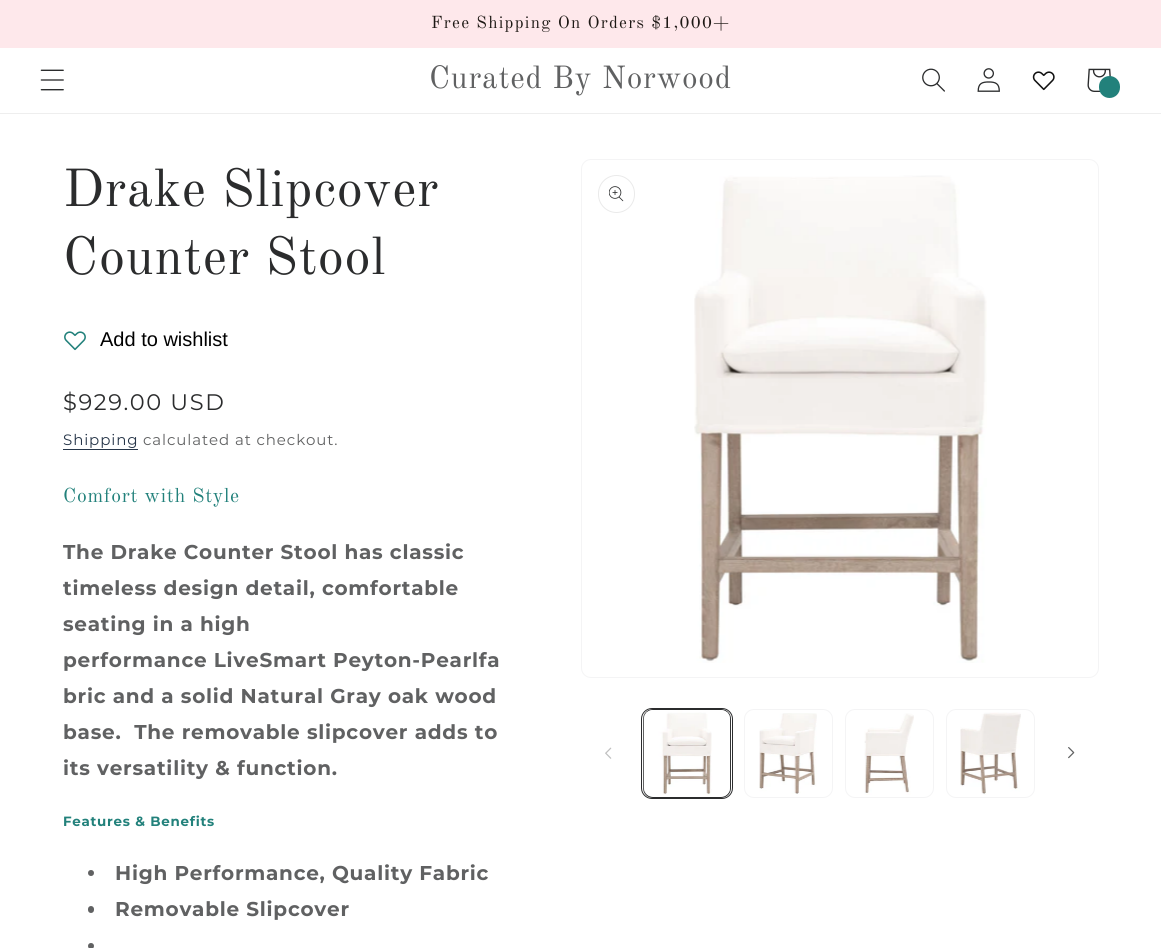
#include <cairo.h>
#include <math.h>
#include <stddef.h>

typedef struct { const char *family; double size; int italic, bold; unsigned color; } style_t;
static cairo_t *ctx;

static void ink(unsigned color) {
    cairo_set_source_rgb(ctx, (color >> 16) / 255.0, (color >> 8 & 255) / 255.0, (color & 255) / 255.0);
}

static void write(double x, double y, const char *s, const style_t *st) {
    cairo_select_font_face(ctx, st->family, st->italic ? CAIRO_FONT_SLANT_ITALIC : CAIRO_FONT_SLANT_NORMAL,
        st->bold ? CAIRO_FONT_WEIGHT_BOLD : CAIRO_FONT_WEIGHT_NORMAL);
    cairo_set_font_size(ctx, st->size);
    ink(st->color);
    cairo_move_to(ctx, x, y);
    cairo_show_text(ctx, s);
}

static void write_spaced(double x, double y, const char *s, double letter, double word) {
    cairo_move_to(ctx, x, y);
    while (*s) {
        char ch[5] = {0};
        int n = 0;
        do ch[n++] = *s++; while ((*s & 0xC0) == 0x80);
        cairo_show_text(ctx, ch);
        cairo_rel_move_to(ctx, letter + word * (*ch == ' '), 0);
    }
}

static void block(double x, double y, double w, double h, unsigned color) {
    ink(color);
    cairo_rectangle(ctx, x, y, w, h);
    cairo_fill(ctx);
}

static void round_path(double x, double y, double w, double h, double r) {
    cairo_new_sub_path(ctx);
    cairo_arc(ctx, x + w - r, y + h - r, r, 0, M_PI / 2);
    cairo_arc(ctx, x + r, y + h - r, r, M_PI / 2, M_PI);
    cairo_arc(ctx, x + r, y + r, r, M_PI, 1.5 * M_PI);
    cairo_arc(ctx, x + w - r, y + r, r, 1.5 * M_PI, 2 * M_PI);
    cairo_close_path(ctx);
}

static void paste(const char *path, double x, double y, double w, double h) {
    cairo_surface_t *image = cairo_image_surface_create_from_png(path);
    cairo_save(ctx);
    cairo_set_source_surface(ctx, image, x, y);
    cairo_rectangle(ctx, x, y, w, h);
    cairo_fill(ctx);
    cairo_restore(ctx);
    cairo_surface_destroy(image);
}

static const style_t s1 = {"Liberation Sans", 20, 0, 0, 0x000000};

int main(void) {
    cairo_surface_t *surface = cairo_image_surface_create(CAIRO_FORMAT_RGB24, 1161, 948);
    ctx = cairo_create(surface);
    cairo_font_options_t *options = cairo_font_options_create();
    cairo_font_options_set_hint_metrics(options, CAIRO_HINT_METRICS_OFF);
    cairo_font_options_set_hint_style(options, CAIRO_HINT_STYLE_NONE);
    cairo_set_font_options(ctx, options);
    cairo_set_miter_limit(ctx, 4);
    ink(0xffffff);
    cairo_paint(ctx);
    block(0, 0, 1161, 48, 0xfee8eb);
    cairo_select_font_face(ctx, "Old Standard TT", CAIRO_FONT_SLANT_NORMAL, CAIRO_FONT_WEIGHT_NORMAL);
    cairo_set_font_size(ctx, 17.1);
    ink(0x1d1814);
    write_spaced(431, 28, "Free Shipping On Orders $1,000+", 1.25, 0);
    block(0, 113, 1161, 1, 0xeeeeee);
    paste("pic1.png", 40, 69, 24, 22);
    cairo_set_font_size(ctx, 31.5);
    ink(0x606162);
    write_spaced(429, 88, "Curated By Norwood", 0.75, 0);
    paste("pic2.png", 922, 68, 23, 24);
    paste("pic3.png", 977, 68, 23, 24);
    paste("pic4.png", 1032, 71, 23, 20);
    paste("pic5.png", 1087, 68, 24, 24);
    ink(0x22817b);
    round_path(1099, 76, 21, 22, 10.5);
    cairo_fill(ctx);
    cairo_set_font_size(ctx, 52.5);
    ink(0x2b2c2d);
    write_spaced(63, 206, "Drake Slipcover", 0.75, 0);
    write_spaced(63, 274, "Counter Stool", 0.75, 0);
    paste("pic6.png", 64, 331, 22, 20);
    write(100, 346, "Add to wishlist", &s1);
    cairo_select_font_face(ctx, "Montserrat", CAIRO_FONT_SLANT_NORMAL, CAIRO_FONT_WEIGHT_NORMAL);
    cairo_set_font_size(ctx, 22.5);
    ink(0x2b2c2d);
    write_spaced(63, 410, "$929.00 USD", 1.6, 0);
    cairo_set_font_size(ctx, 15);
    ink(0x263548);
    write_spaced(63, 445, "Shipping", 0.9, 0);
    block(63, 449, 75, 1, 0x263548);
    ink(0x606162);
    write_spaced(143, 445, "calculated at checkout.", 0.9, 0);
    cairo_select_font_face(ctx, "Old Standard TT", CAIRO_FONT_SLANT_NORMAL, CAIRO_FONT_WEIGHT_NORMAL);
    cairo_set_font_size(ctx, 19.75);
    ink(0x22817b);
    write_spaced(63, 502, "Comfort with Style", 0.75, 0);
    cairo_select_font_face(ctx, "Montserrat", CAIRO_FONT_SLANT_NORMAL, CAIRO_FONT_WEIGHT_BOLD);
    cairo_set_font_size(ctx, 20);
    ink(0x606162);
    write_spaced(63, 559, "The Drake Counter Stool has classic", 0.75, 0);
    write_spaced(63, 595, "timeless design detail, comfortable", 0.75, 0);
    write_spaced(63, 631, "seating in a high", 0.75, 0);
    write_spaced(63, 667, "performance LiveSmart Peyton-Pearlfa", 0.75, 0);
    write_spaced(63, 703, "bric and a solid Natural Gray oak wood", 0.75, 0);
    write_spaced(63, 739, "base.  The removable slipcover adds to", 0.75, 0);
    write_spaced(63, 775, "its versatility & function.", 0.75, 0);
    cairo_set_font_size(ctx, 13.4);
    ink(0x22817b);
    write_spaced(63, 826, "Features & Benefits", 0.75, 0);
    ink(0x606162);
    cairo_new_path(ctx);
    cairo_arc(ctx, 91, 873, 3, 0, 2 * M_PI);
    cairo_fill(ctx);
    cairo_set_font_size(ctx, 20);
    write_spaced(115, 880, "High Performance, Quality Fabric", 0.75, 0);
    round_path(88, 906, 6, 7, 3);
    cairo_fill(ctx);
    write_spaced(115, 916, "Removable Slipcover", 0.75, 0);
    cairo_new_path(ctx);
    cairo_arc(ctx, 91, 946, 3, 0, 2 * M_PI);
    cairo_fill(ctx);
    round_path(581.5, 159.5, 517, 518, 9.5);
    ink(0xf4f4f5);
    cairo_set_line_width(ctx, 1);
    cairo_stroke(ctx);
    round_path(598.5, 175.5, 36, 37, 18);
    ink(0xeaeaea);
    cairo_stroke(ctx);
    paste("pic7.png", 609, 186, 15, 16);
    paste("pic8.png", 694, 175, 293, 488);
    paste("pic9.png", 605, 747, 7, 12);
    round_path(641.5, 708.5, 91, 90, 10.5);
    ink(0x2b2c2d);
    cairo_stroke(ctx);
    round_path(643.5, 709.5, 87, 88, 9.5);
    cairo_stroke(ctx);
    paste("pic10.png", 643, 710, 88, 86);
    round_path(744.5, 709.5, 88, 88, 9.5);
    ink(0xf4f4f5);
    cairo_stroke(ctx);
    paste("pic11.png", 759, 713, 58, 81);
    round_path(845.5, 709.5, 88, 88, 9.5);
    cairo_stroke(ctx);
    paste("pic12.png", 864, 713, 50, 82);
    round_path(946.5, 709.5, 88, 88, 9.5);
    cairo_stroke(ctx);
    paste("pic13.png", 960, 712, 61, 83);
    paste("pic14.png", 1068, 747, 7, 12);
    cairo_surface_write_to_png(surface, "screenshot.png");
    cairo_font_options_destroy(options);
    cairo_destroy(ctx);
    cairo_surface_destroy(surface);
    return 0;
}
